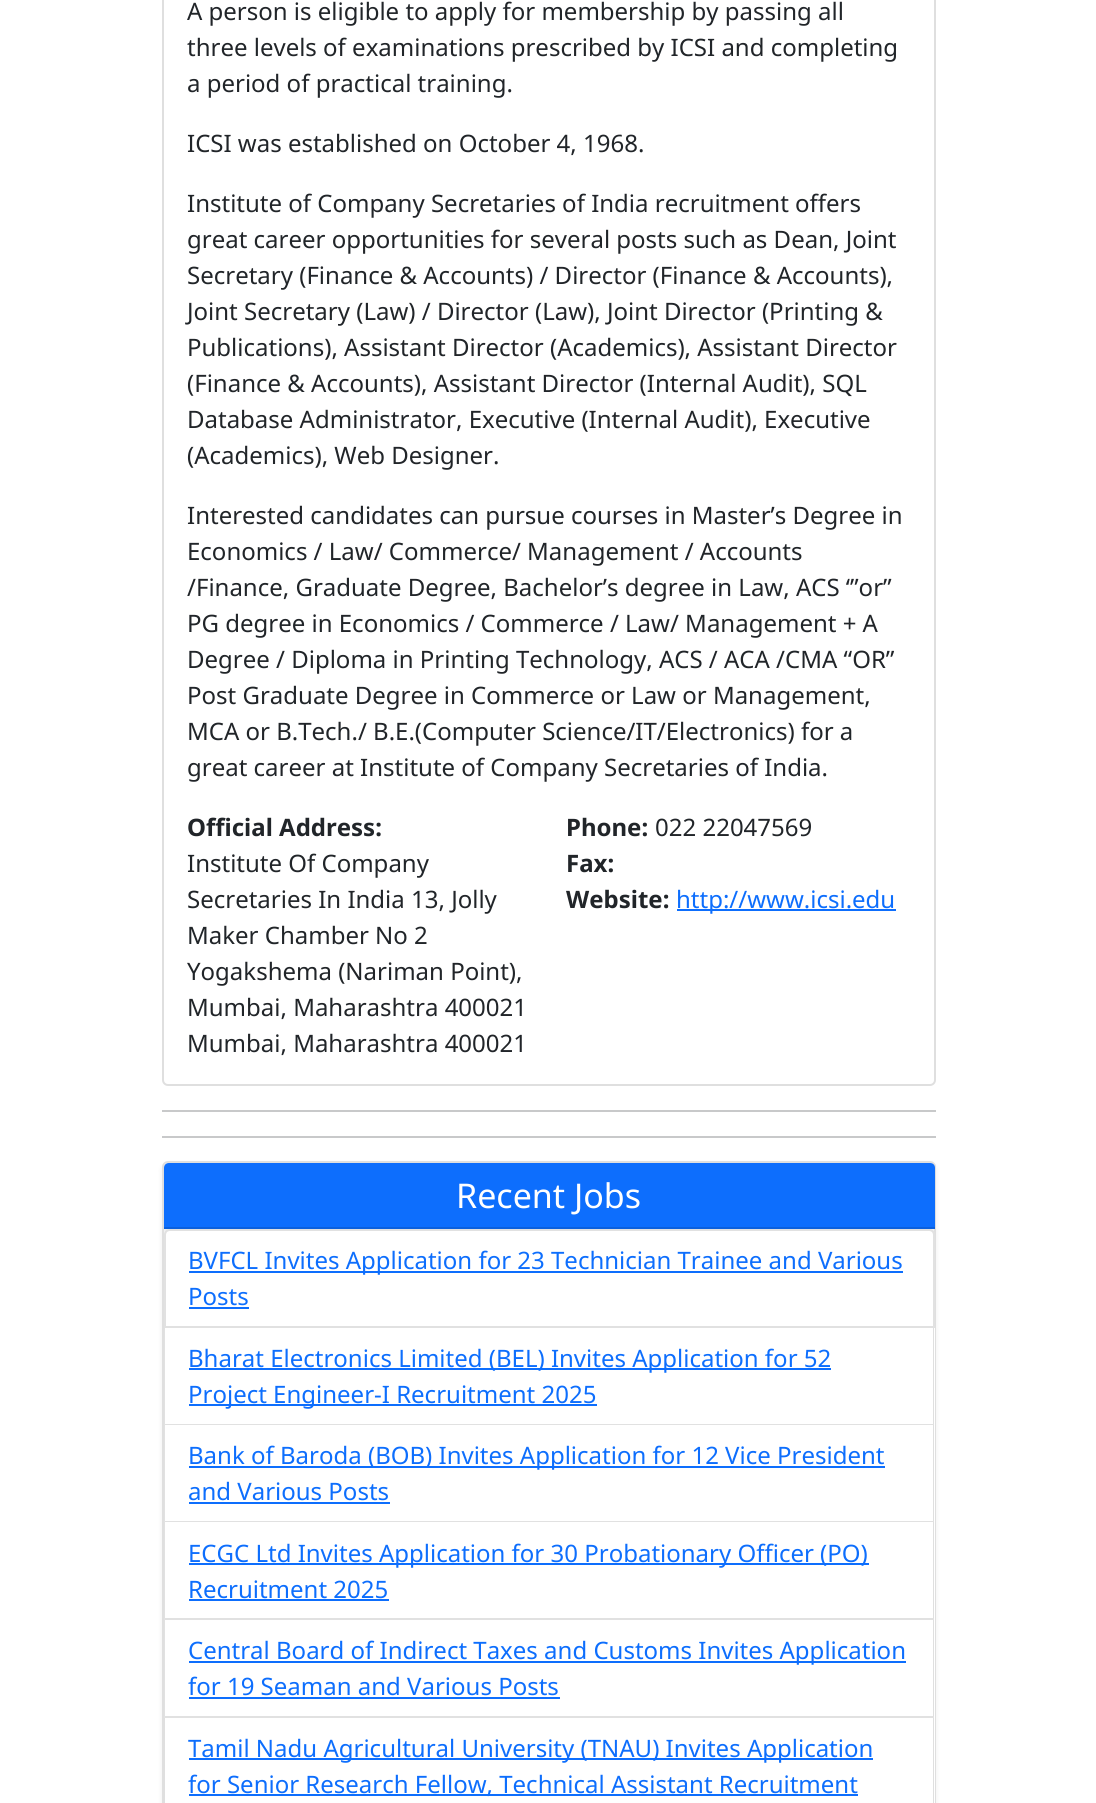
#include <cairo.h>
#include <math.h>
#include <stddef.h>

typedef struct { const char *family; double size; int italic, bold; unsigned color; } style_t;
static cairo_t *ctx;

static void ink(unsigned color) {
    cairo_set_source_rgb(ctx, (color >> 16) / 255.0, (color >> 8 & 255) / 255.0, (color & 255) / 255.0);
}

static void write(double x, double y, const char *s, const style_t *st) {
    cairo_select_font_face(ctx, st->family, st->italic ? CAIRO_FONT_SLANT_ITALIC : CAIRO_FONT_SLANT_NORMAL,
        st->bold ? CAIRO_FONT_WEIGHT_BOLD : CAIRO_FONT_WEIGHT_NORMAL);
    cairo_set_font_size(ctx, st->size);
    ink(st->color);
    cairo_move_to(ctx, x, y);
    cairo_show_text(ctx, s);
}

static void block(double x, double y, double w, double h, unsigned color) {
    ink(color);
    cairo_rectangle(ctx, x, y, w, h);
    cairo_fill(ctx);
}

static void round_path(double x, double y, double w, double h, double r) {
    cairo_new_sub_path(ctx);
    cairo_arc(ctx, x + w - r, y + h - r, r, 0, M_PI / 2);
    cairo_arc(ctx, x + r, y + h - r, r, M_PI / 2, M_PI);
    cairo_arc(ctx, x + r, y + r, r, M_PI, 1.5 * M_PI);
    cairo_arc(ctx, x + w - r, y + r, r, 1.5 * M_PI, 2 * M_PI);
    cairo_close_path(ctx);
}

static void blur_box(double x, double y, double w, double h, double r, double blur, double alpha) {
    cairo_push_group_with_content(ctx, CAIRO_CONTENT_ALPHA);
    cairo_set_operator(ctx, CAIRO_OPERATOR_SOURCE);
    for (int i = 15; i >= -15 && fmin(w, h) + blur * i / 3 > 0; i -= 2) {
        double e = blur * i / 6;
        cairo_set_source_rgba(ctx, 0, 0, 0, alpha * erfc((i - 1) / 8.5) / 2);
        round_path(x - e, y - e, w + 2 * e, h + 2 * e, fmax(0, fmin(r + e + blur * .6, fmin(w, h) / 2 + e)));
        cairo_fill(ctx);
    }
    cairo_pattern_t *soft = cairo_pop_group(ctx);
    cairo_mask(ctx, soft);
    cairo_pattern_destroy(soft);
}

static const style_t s1 = {"Noto Sans", 24, 0, 0, 0x212529};
static const style_t s2 = {"Noto Sans", 24, 0, 1, 0x212529};
static const style_t s3 = {"Noto Sans", 24, 0, 0, 0x0d6efd};
static const style_t s4 = {"Noto Sans", 34, 0, 0, 0xffffff};

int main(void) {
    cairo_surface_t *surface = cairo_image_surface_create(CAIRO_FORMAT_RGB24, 1096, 1803);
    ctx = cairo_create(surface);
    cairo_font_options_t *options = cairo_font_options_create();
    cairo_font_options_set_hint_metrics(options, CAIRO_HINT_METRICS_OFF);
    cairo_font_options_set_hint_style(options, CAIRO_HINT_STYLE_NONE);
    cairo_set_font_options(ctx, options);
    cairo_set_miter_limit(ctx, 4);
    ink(0xffffff);
    cairo_paint(ctx);
    round_path(163, -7, 772, 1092, 5);
    ink(0xdfdfdf);
    cairo_stroke(ctx);
    write(187, 20, "A person is eligible to apply for membership by passing all", &s1);
    write(187, 56, "three levels of examinations prescribed by ICSI and completing", &s1);
    write(187, 92, "a period of practical training.", &s1);
    write(187, 152, "ICSI was established on October 4, 1968.", &s1);
    write(187, 212, "Institute of Company Secretaries of India recruitment offers", &s1);
    write(187, 248, "great career opportunities for several posts such as Dean, Joint", &s1);
    write(187, 284, "Secretary (Finance & Accounts) / Director (Finance & Accounts),", &s1);
    write(187, 320, "Joint Secretary (Law) / Director (Law), Joint Director (Printing &", &s1);
    write(187, 356, "Publications), Assistant Director (Academics), Assistant Director", &s1);
    write(187, 392, "(Finance & Accounts), Assistant Director (Internal Audit), SQL", &s1);
    write(187, 428, "Database Administrator, Executive (Internal Audit), Executive", &s1);
    write(187, 464, "(Academics), Web Designer.", &s1);
    write(187, 524, "Interested candidates can pursue courses in Master’s Degree in", &s1);
    write(187, 560, "Economics / Law/ Commerce/ Management / Accounts", &s1);
    write(187, 596, "/Finance, Graduate Degree, Bachelor’s degree in Law, ACS ‘”or”", &s1);
    write(187, 632, "PG degree in Economics / Commerce / Law/ Management + A", &s1);
    write(187, 668, "Degree / Diploma in Printing Technology, ACS / ACA /CMA “OR”", &s1);
    write(187, 704, "Post Graduate Degree in Commerce or Law or Management,", &s1);
    write(187, 740, "MCA or B.Tech./ B.E.(Computer Science/IT/Electronics) for a", &s1);
    write(187, 776, "great career at Institute of Company Secretaries of India.", &s1);
    write(187, 836, "Official Address:", &s2);
    write(187, 872, "Institute Of Company", &s1);
    write(187, 908, "Secretaries In India 13, Jolly", &s1);
    write(187, 944, "Maker Chamber No 2", &s1);
    write(187, 980, "Yogakshema (Nariman Point),", &s1);
    write(187, 1016, "Mumbai, Maharashtra 400021", &s1);
    write(187, 1052, "Mumbai, Maharashtra 400021", &s1);
    write(566, 836, "Phone:", &s2);
    write(655, 836, "022 22047569", &s1);
    write(566, 872, "Fax:", &s2);
    write(566, 908, "Website:", &s2);
    block(677, 909, 219, 2, 0x0d6efd);
    write(676, 908, "http://www.icsi.edu", &s3);
    block(162, 1110, 774, 2, 0xc8c9ca);
    block(162, 1136, 774, 2, 0xc8c9ca);
    ink(0x000000);
    blur_box(162, 1164, 774, 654, 6, 3, 0.07);
    round_path(163, 1162, 772, 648, 5);
    ink(0xdfdfdf);
    cairo_stroke(ctx);
    ink(0x0d6efd);
    cairo_new_path(ctx);
    cairo_move_to(ctx, 169, 1163);
    cairo_line_to(ctx, 930, 1163);
    cairo_curve_to(ctx, 933, 1163, 935, 1165, 935, 1168);
    cairo_line_to(ctx, 935, 1229);
    cairo_line_to(ctx, 164, 1229);
    cairo_line_to(ctx, 164, 1168);
    cairo_curve_to(ctx, 164, 1165, 166, 1163, 169, 1163);
    cairo_close_path(ctx);
    cairo_fill(ctx);
    block(164, 1227, 771, 2, 0x0b60dd);
    write(456, 1208, "Recent Jobs", &s4);
    cairo_new_path(ctx);
    cairo_move_to(ctx, 170, 1229);
    cairo_line_to(ctx, 929, 1229);
    cairo_curve_to(ctx, 932.5, 1229, 935, 1231.5, 935, 1235);
    cairo_line_to(ctx, 935, 1328);
    cairo_line_to(ctx, 164, 1328);
    cairo_line_to(ctx, 164, 1235);
    cairo_curve_to(ctx, 164, 1231.5, 166.5, 1229, 170, 1229);
    cairo_close_path(ctx);
    cairo_fill(ctx);
    cairo_new_path(ctx);
    cairo_move_to(ctx, 170, 1230);
    cairo_line_to(ctx, 929, 1230);
    cairo_curve_to(ctx, 932, 1230, 934, 1232, 934, 1235);
    cairo_line_to(ctx, 934, 1327);
    cairo_line_to(ctx, 165, 1327);
    cairo_line_to(ctx, 165, 1235);
    cairo_curve_to(ctx, 165, 1232, 167, 1230, 170, 1230);
    cairo_close_path(ctx);
    cairo_set_source_rgba(ctx, 0, 0, 0, 0.12);
    cairo_stroke(ctx);
    block(189, 1271, 714, 2, 0x0d6efd);
    write(188, 1269, "BVFCL Invites Application for 23 Technician Trainee and Various", &s3);
    write(188, 1305, "Posts", &s3);
    block(189, 1307, 60, 2, 0x0d6efd);
    block(164, 1328, 771, 390, 0xffffff);
    ink(0xdfdfdf);
    cairo_new_path(ctx);
    cairo_move_to(ctx, 934, 1328);
    cairo_line_to(ctx, 934, 1425);
    cairo_line_to(ctx, 933, 1424);
    cairo_line_to(ctx, 933, 1328);
    cairo_close_path(ctx);
    cairo_fill(ctx);
    cairo_set_source_rgba(ctx, 0, 0, 0, 0.12);
    cairo_new_path(ctx);
    cairo_move_to(ctx, 934, 1425);
    cairo_line_to(ctx, 164, 1425);
    cairo_line_to(ctx, 165, 1424);
    cairo_line_to(ctx, 933, 1424);
    cairo_close_path(ctx);
    cairo_fill(ctx);
    cairo_new_path(ctx);
    cairo_move_to(ctx, 164, 1425);
    cairo_line_to(ctx, 164, 1328);
    cairo_line_to(ctx, 165, 1328);
    cairo_line_to(ctx, 165, 1424);
    cairo_close_path(ctx);
    cairo_fill(ctx);
    block(189, 1368, 642, 2, 0x0d6efd);
    write(188, 1367, "Bharat Electronics Limited (BEL) Invites Application for 52", &s3);
    block(189, 1404, 408, 2, 0x0d6efd);
    write(188, 1403, "Project Engineer-I Recruitment 2025", &s3);
    ink(0xdfdfdf);
    cairo_new_path(ctx);
    cairo_move_to(ctx, 934, 1425);
    cairo_line_to(ctx, 934, 1522);
    cairo_line_to(ctx, 933, 1521);
    cairo_line_to(ctx, 933, 1425);
    cairo_close_path(ctx);
    cairo_fill(ctx);
    cairo_set_source_rgba(ctx, 0, 0, 0, 0.12);
    cairo_new_path(ctx);
    cairo_move_to(ctx, 934, 1522);
    cairo_line_to(ctx, 164, 1522);
    cairo_line_to(ctx, 165, 1521);
    cairo_line_to(ctx, 933, 1521);
    cairo_close_path(ctx);
    cairo_fill(ctx);
    cairo_new_path(ctx);
    cairo_move_to(ctx, 164, 1522);
    cairo_line_to(ctx, 164, 1425);
    cairo_line_to(ctx, 165, 1425);
    cairo_line_to(ctx, 165, 1521);
    cairo_close_path(ctx);
    cairo_fill(ctx);
    block(189, 1466, 696, 2, 0x0d6efd);
    write(188, 1464, "Bank of Baroda (BOB) Invites Application for 12 Vice President", &s3);
    write(188, 1500, "and Various Posts", &s3);
    block(189, 1502, 201, 2, 0x0d6efd);
    ink(0xdfdfdf);
    cairo_new_path(ctx);
    cairo_move_to(ctx, 934, 1522);
    cairo_line_to(ctx, 934, 1620);
    cairo_line_to(ctx, 933, 1618);
    cairo_line_to(ctx, 933, 1522);
    cairo_close_path(ctx);
    cairo_fill(ctx);
    cairo_set_source_rgba(ctx, 0, 0, 0, 0.12);
    cairo_new_path(ctx);
    cairo_move_to(ctx, 934, 1620);
    cairo_line_to(ctx, 164, 1620);
    cairo_line_to(ctx, 165, 1618);
    cairo_line_to(ctx, 933, 1618);
    cairo_close_path(ctx);
    cairo_fill(ctx);
    cairo_new_path(ctx);
    cairo_move_to(ctx, 164, 1620);
    cairo_line_to(ctx, 164, 1522);
    cairo_line_to(ctx, 165, 1522);
    cairo_line_to(ctx, 165, 1618);
    cairo_close_path(ctx);
    cairo_fill(ctx);
    block(189, 1563, 680, 2, 0x0d6efd);
    write(188, 1562, "ECGC Ltd Invites Application for 30 Probationary Officer (PO)", &s3);
    write(188, 1598, "Recruitment 2025", &s3);
    block(189, 1599, 200, 2, 0x0d6efd);
    ink(0xdfdfdf);
    cairo_new_path(ctx);
    cairo_move_to(ctx, 934, 1620);
    cairo_line_to(ctx, 934, 1718);
    cairo_line_to(ctx, 933, 1716);
    cairo_line_to(ctx, 933, 1620);
    cairo_close_path(ctx);
    cairo_fill(ctx);
    cairo_set_source_rgba(ctx, 0, 0, 0, 0.12);
    cairo_new_path(ctx);
    cairo_move_to(ctx, 934, 1718);
    cairo_line_to(ctx, 164, 1718);
    cairo_line_to(ctx, 165, 1716);
    cairo_line_to(ctx, 933, 1716);
    cairo_close_path(ctx);
    cairo_fill(ctx);
    cairo_new_path(ctx);
    cairo_move_to(ctx, 164, 1718);
    cairo_line_to(ctx, 164, 1620);
    cairo_line_to(ctx, 165, 1620);
    cairo_line_to(ctx, 165, 1716);
    cairo_close_path(ctx);
    cairo_fill(ctx);
    block(189, 1661, 717, 2, 0x0d6efd);
    write(188, 1659, "Central Board of Indirect Taxes and Customs Invites Application", &s3);
    write(188, 1695, "for 19 Seaman and Various Posts", &s3);
    block(189, 1697, 371, 2, 0x0d6efd);
    block(165, 1718, 770, 85, 0xffffff);
    ink(0xdfdfdf);
    cairo_new_path(ctx);
    cairo_move_to(ctx, 934, 1718);
    cairo_line_to(ctx, 934, 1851);
    cairo_line_to(ctx, 933, 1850);
    cairo_line_to(ctx, 933, 1718);
    cairo_close_path(ctx);
    cairo_fill(ctx);
    cairo_new_path(ctx);
    cairo_move_to(ctx, 164, 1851);
    cairo_line_to(ctx, 164, 1718);
    cairo_line_to(ctx, 165, 1718);
    cairo_line_to(ctx, 165, 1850);
    cairo_close_path(ctx);
    cairo_fill(ctx);
    block(189, 1758, 684, 2, 0x0d6efd);
    write(188, 1757, "Tamil Nadu Agricultural University (TNAU) Invites Application", &s3);
    block(189, 1794, 669, 2, 0x0d6efd);
    write(188, 1793, "for Senior Research Fellow, Technical Assistant Recruitment", &s3);
    cairo_surface_write_to_png(surface, "screenshot.png");
    cairo_font_options_destroy(options);
    cairo_destroy(ctx);
    cairo_surface_destroy(surface);
    return 0;
}
